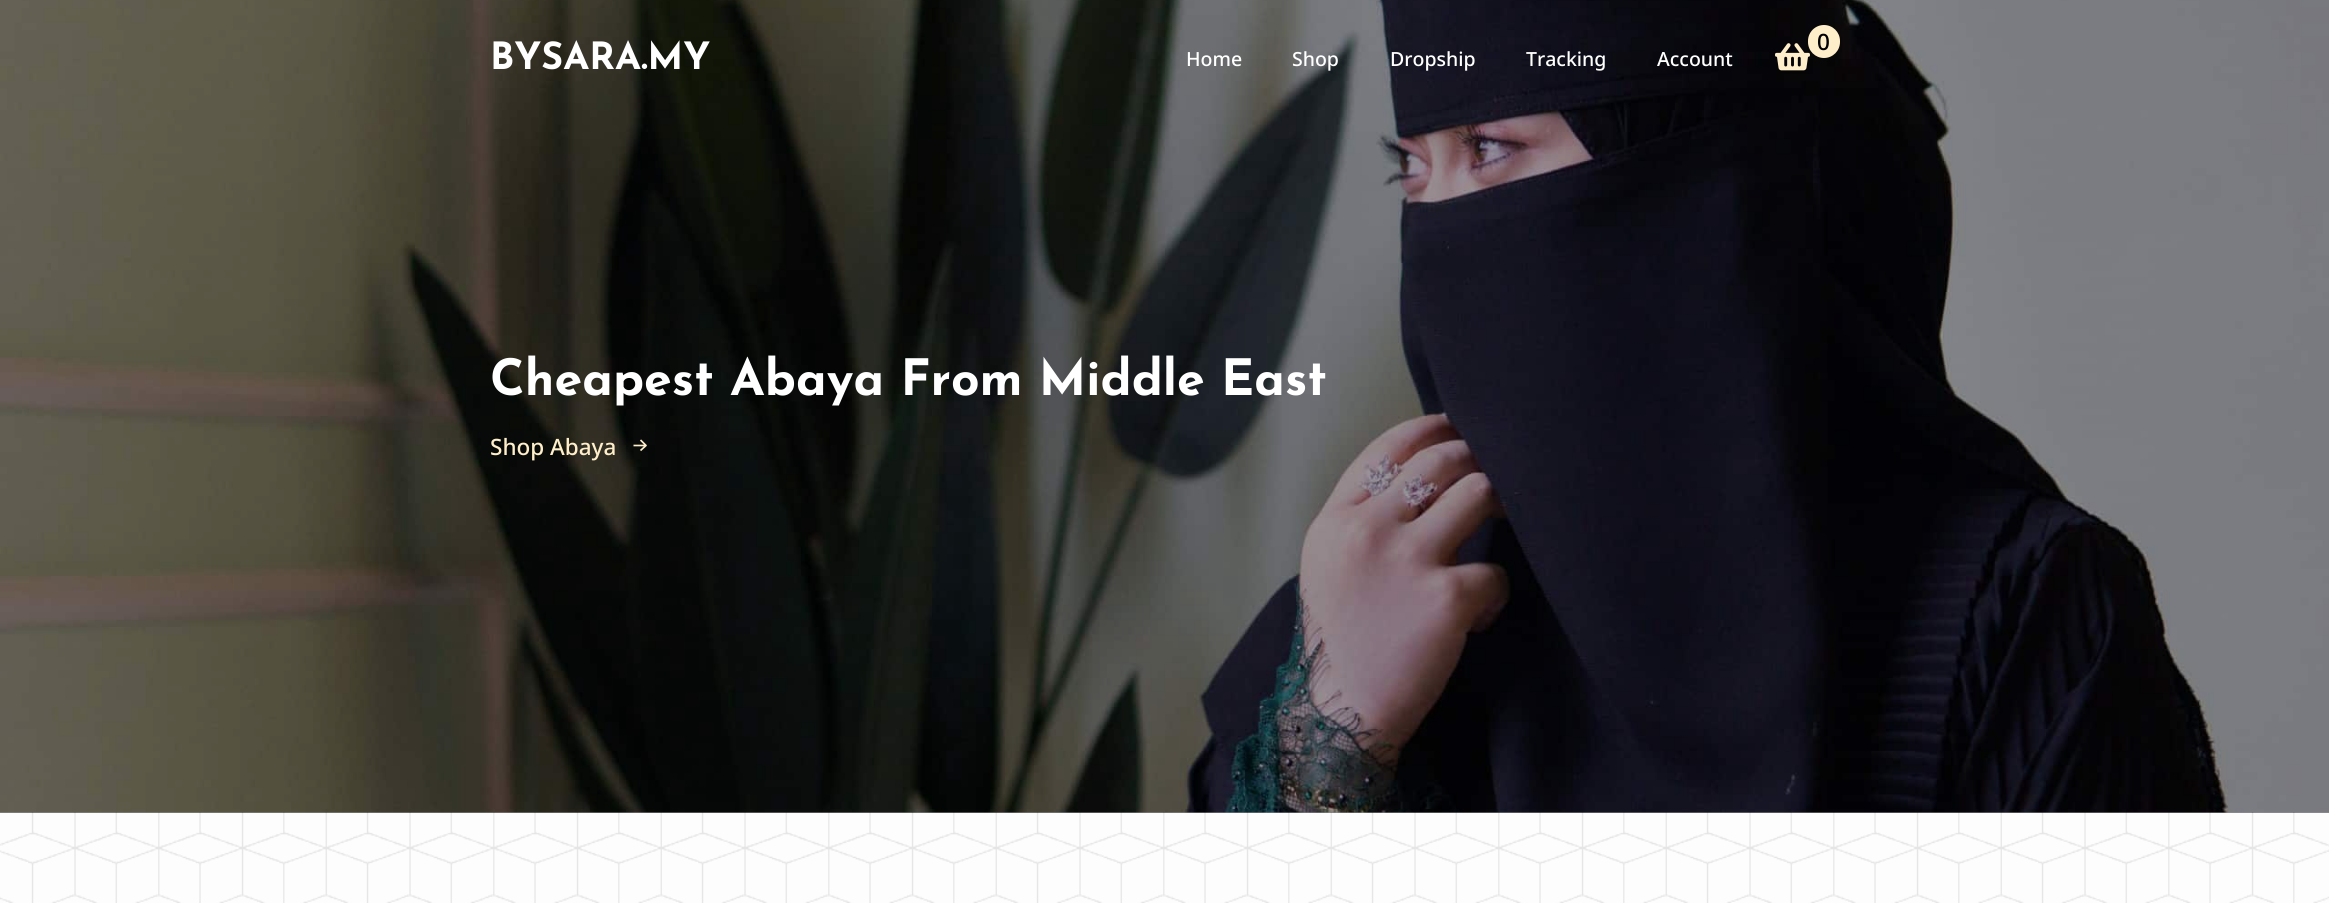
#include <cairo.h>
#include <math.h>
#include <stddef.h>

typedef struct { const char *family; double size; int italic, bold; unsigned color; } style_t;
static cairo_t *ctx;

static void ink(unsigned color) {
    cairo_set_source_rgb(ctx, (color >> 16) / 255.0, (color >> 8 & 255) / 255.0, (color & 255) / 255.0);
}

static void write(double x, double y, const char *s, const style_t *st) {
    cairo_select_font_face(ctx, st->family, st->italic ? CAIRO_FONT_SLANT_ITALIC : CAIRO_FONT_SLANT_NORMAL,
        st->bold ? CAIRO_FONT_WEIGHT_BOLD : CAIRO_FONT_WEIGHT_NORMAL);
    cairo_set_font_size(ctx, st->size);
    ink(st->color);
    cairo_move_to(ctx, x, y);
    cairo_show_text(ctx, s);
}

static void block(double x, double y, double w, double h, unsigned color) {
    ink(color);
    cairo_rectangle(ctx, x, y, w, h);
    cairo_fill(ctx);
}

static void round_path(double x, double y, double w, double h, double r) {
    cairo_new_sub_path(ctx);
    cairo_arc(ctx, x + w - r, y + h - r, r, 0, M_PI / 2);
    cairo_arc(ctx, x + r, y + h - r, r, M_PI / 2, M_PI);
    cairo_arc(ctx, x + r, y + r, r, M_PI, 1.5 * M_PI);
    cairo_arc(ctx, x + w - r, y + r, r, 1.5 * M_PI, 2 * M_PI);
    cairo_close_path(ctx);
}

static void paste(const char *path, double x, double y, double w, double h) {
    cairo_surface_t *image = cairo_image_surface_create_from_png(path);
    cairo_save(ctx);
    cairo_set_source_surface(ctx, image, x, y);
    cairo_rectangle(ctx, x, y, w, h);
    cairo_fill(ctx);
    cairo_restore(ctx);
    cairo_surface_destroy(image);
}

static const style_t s1 = {"Josefin Sans", 37.5, 0, 1, 0xffffff};
static const style_t s2 = {"Noto Sans Medium", 22.5, 0, 0, 0x000000};
static const style_t s3 = {"Noto Sans Medium", 19.5, 0, 0, 0xffffff};
static const style_t s4 = {"Josefin Sans", 50, 0, 1, 0xffffff};
static const style_t s5 = {"Noto Sans Medium", 22.5, 0, 0, 0xffeeca};

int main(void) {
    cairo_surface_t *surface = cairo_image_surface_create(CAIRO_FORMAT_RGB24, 2329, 903);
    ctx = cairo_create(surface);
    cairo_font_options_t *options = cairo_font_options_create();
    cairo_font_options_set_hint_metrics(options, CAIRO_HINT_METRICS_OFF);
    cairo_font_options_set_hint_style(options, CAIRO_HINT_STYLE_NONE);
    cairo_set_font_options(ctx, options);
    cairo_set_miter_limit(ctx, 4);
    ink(0xfdfdfd);
    cairo_paint(ctx);
    block(0, 812, 2329, 1, 0x959697);
    paste("pic2.png", 0, 0, 2329, 813);
    write(490, 69, "BYSARA.MY", &s1);
    paste("pic1.png", 1775, 43, 35, 28);
    ink(0xffeeca);
    round_path(1808, 25, 32, 33, 16);
    cairo_fill(ctx);
    write(1817, 50, "0", &s2);
    write(1186, 66, "Home", &s3);
    write(1292, 66, "Shop", &s3);
    write(1390, 66, "Dropship", &s3);
    write(1526, 66, "Tracking", &s3);
    write(1657, 66, "Account", &s3);
    write(490, 395, "Cheapest Abaya From Middle East", &s4);
    write(490, 455, "Shop Abaya", &s5);
    cairo_new_path(ctx);
    cairo_move_to(ctx, 640.5, 440);
    cairo_line_to(ctx, 646, 445.5);
    cairo_line_to(ctx, 640.5, 450.5);
    cairo_move_to(ctx, 633.5, 445.5);
    cairo_line_to(ctx, 646, 445.5);
    cairo_set_line_width(ctx, 1.7);
    cairo_set_line_join(ctx, CAIRO_LINE_JOIN_ROUND);
    cairo_stroke(ctx);
    paste("pic3.png", 0, 812, 2329, 91);
    cairo_surface_write_to_png(surface, "screenshot.png");
    cairo_font_options_destroy(options);
    cairo_destroy(ctx);
    cairo_surface_destroy(surface);
    return 0;
}
